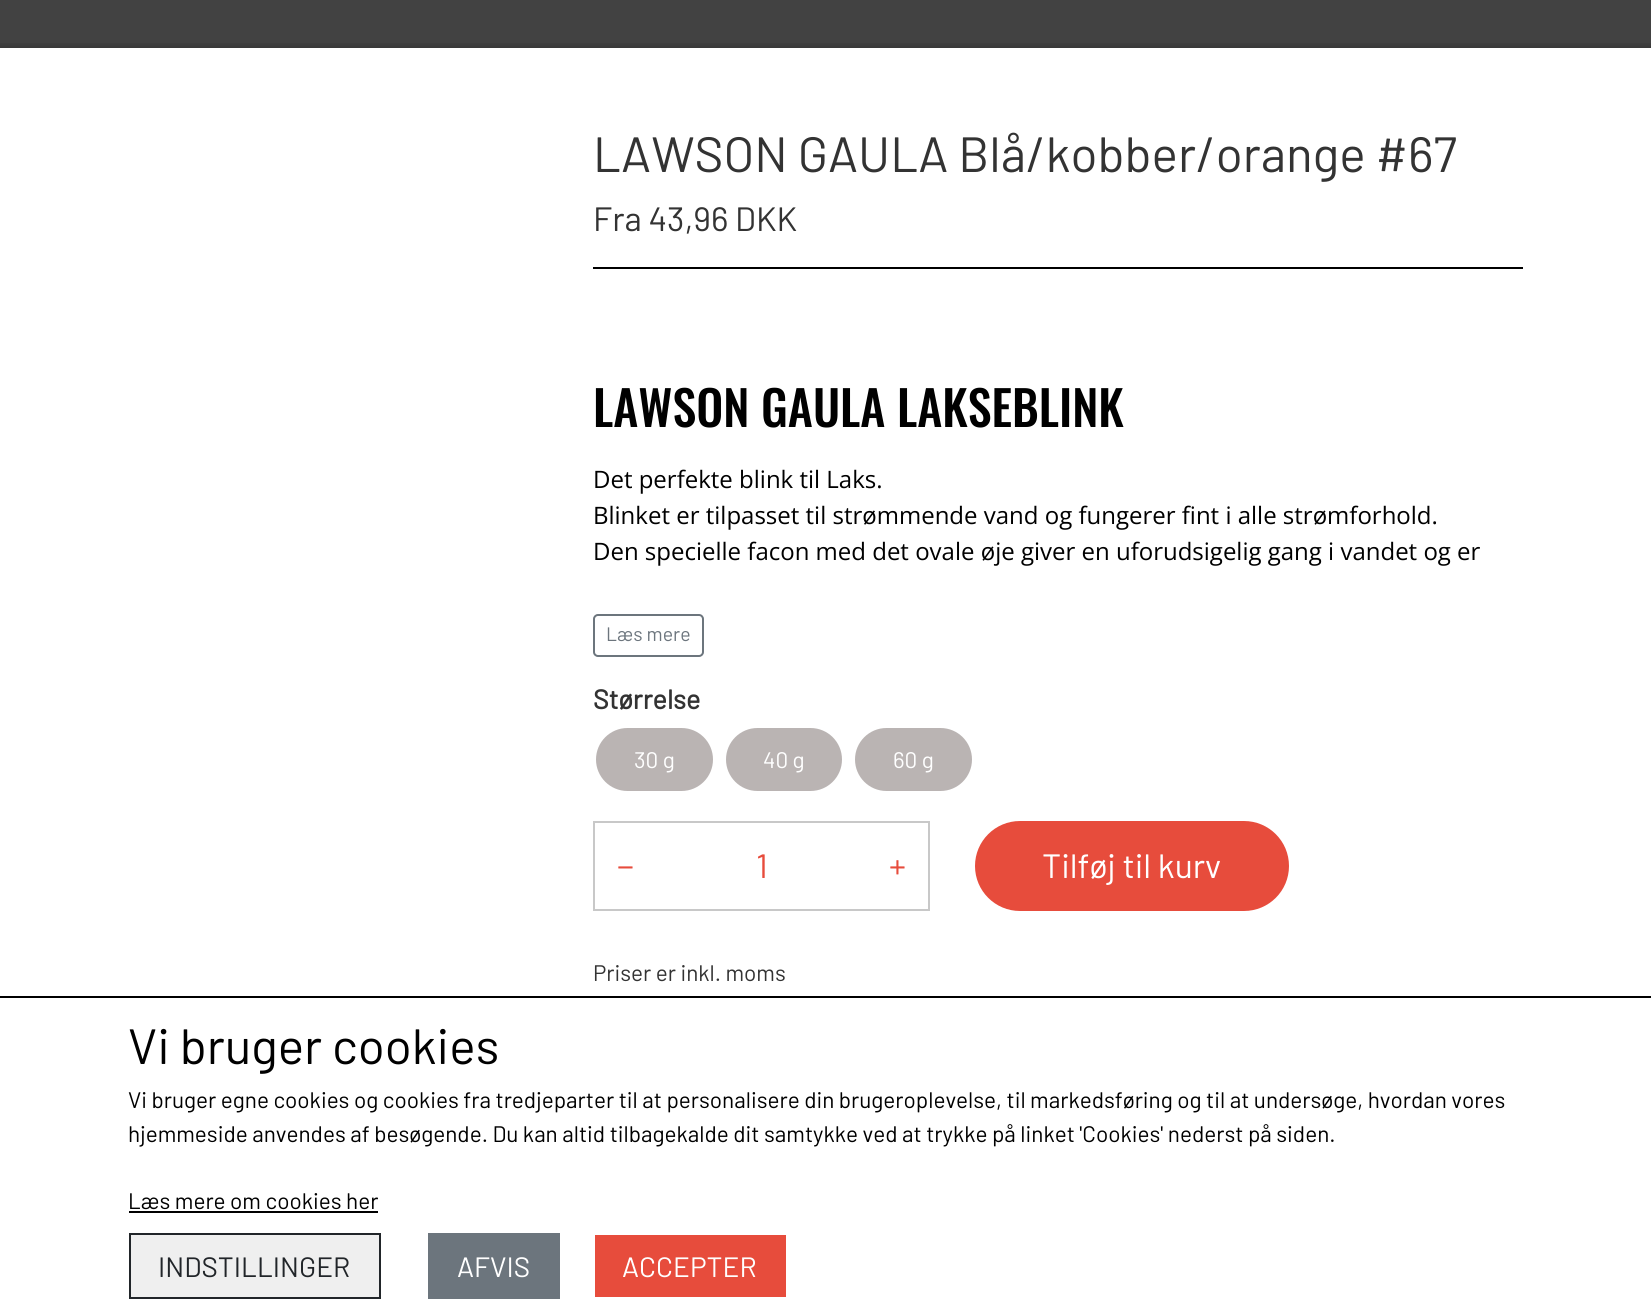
#include <cairo.h>
#include <math.h>
#include <stddef.h>

typedef struct { const char *family; double size; int italic, bold; unsigned color; } style_t;
static cairo_t *ctx;

static void ink(unsigned color) {
    cairo_set_source_rgb(ctx, (color >> 16) / 255.0, (color >> 8 & 255) / 255.0, (color & 255) / 255.0);
}

static void write(double x, double y, const char *s, const style_t *st) {
    cairo_select_font_face(ctx, st->family, st->italic ? CAIRO_FONT_SLANT_ITALIC : CAIRO_FONT_SLANT_NORMAL,
        st->bold ? CAIRO_FONT_WEIGHT_BOLD : CAIRO_FONT_WEIGHT_NORMAL);
    cairo_set_font_size(ctx, st->size);
    ink(st->color);
    cairo_move_to(ctx, x, y);
    cairo_show_text(ctx, s);
}

static void block(double x, double y, double w, double h, unsigned color) {
    ink(color);
    cairo_rectangle(ctx, x, y, w, h);
    cairo_fill(ctx);
}

static void round_path(double x, double y, double w, double h, double r) {
    cairo_new_sub_path(ctx);
    cairo_arc(ctx, x + w - r, y + h - r, r, 0, M_PI / 2);
    cairo_arc(ctx, x + r, y + h - r, r, M_PI / 2, M_PI);
    cairo_arc(ctx, x + r, y + r, r, M_PI, 1.5 * M_PI);
    cairo_arc(ctx, x + w - r, y + r, r, 1.5 * M_PI, 2 * M_PI);
    cairo_close_path(ctx);
}

static const style_t s1 = {"Barlow", 49.5, 0, 0, 0x333333};
static const style_t s2 = {"Barlow", 33.75, 0, 0, 0x333333};
static const style_t s3 = {"Oswald Medium", 48, 0, 0, 0x000000};
static const style_t s4 = {"Open Sans", 24, 0, 0, 0x000000};
static const style_t s5 = {"Barlow", 19.5, 0, 0, 0x6c757d};
static const style_t s6 = {"Barlow", 27, 0, 1, 0x333333};
static const style_t s7 = {"Barlow", 22.5, 0, 0, 0xffffff};
static const style_t s8 = {"Barlow", 33.75, 0, 0, 0xe74c3c};
static const style_t s9 = {"Barlow", 33.75, 0, 0, 0xffffff};
static const style_t s10 = {"Barlow", 22.5, 0, 0, 0x333333};
static const style_t s11 = {"Barlow", 49.5, 0, 0, 0x000000};
static const style_t s12 = {"Barlow", 22.5, 0, 0, 0x000000};
static const style_t s13 = {"Barlow", 28, 0, 0, 0x212529};
static const style_t s14 = {"Barlow", 28, 0, 0, 0xffffff};

int main(void) {
    cairo_surface_t *surface = cairo_image_surface_create(CAIRO_FORMAT_RGB24, 1651, 1309);
    ctx = cairo_create(surface);
    cairo_font_options_t *options = cairo_font_options_create();
    cairo_font_options_set_hint_metrics(options, CAIRO_HINT_METRICS_OFF);
    cairo_font_options_set_hint_style(options, CAIRO_HINT_STYLE_NONE);
    cairo_set_font_options(ctx, options);
    cairo_set_miter_limit(ctx, 4);
    cairo_pattern_t *gradient;
    ink(0x424242);
    cairo_paint(ctx);
    gradient = cairo_pattern_create_linear(826, 48, 826, 41);
    cairo_pattern_add_color_stop_rgba(gradient, 0, 0.22, 0.22, 0.22, 1);
    cairo_pattern_add_color_stop_rgba(gradient, 1, 0.259, 0.259, 0.259, 1);
    cairo_set_source(ctx, gradient);
    cairo_pattern_destroy(gradient);
    cairo_rectangle(ctx, 0, 43, 1651, 5);
    cairo_fill(ctx);
    block(0, 48, 1651, 948, 0xffffff);
    write(593, 172, "LAWSON GAULA Blå/kobber/orange #67", &s1);
    write(593, 231, "Fra 43,96 DKK", &s2);
    block(593, 267, 930, 2, 0x000000);
    write(593, 427, "LAWSON GAULA LAKSEBLINK", &s3);
    write(593, 488, "Det perfekte blink til Laks.", &s4);
    write(593, 524, "Blinket er tilpasset til strømmende vand og fungerer fint i alle strømforhold.", &s4);
    write(593, 560, "Den specielle facon med det ovale øje giver en uforudsigelig gang i vandet og er", &s4);
    round_path(594, 615, 109, 41, 4);
    ink(0x6c757d);
    cairo_stroke(ctx);
    write(606, 641, "Læs mere", &s5);
    write(593, 709, "Størrelse", &s6);
    ink(0xbab4b3);
    round_path(596, 728, 117, 63, 31.5);
    cairo_fill(ctx);
    write(634, 768, "30 g", &s7);
    ink(0xbab4b3);
    round_path(726, 728, 116, 63, 31.5);
    cairo_fill(ctx);
    write(763, 768, "40 g", &s7);
    ink(0xbab4b3);
    round_path(855, 728, 117, 63, 31.5);
    cairo_fill(ctx);
    write(893, 768, "60 g", &s7);
    cairo_rectangle(ctx, 594, 822, 335, 88);
    ink(0xc8c8c8);
    cairo_stroke(ctx);
    write(617, 878, "−", &s8);
    write(756, 878, "1", &s8);
    write(889, 878, "+", &s8);
    round_path(975, 821, 314, 90, 45);
    cairo_fill(ctx);
    write(1042, 878, "Tilføj til kurv", &s9);
    write(593, 981, "Priser er inkl. moms", &s10);
    block(0, 998, 1651, 311, 0xffffff);
    block(0, 996, 1651, 2, 0x000000);
    write(128, 1064, "Vi bruger cookies", &s11);
    write(128, 1108, "Vi bruger egne cookies og cookies fra tredjeparter til at personalisere din brugeroplevelse, til markedsføring og til at undersøge, hvordan vores", &s12);
    write(128, 1142, "hjemmeside anvendes af besøgende. Du kan altid tilbagekalde dit samtykke ved at trykke på linket 'Cookies' nederst på siden.", &s12);
    write(128, 1209, "Læs mere om cookies her", &s12);
    block(129, 1211, 249, 2, 0x000000);
    ink(0xefefef);
    cairo_rectangle(ctx, 130, 1234, 250, 64);
    cairo_fill_preserve(ctx);
    ink(0x212529);
    cairo_stroke(ctx);
    write(158, 1277, "INDSTILLINGER", &s13);
    block(428, 1233, 132, 66, 0x6c757d);
    write(457, 1277, "AFVIS", &s14);
    block(595, 1235, 191, 62, 0xe74c3c);
    write(622, 1277, "ACCEPTER", &s14);
    cairo_surface_write_to_png(surface, "screenshot.png");
    cairo_font_options_destroy(options);
    cairo_destroy(ctx);
    cairo_surface_destroy(surface);
    return 0;
}
